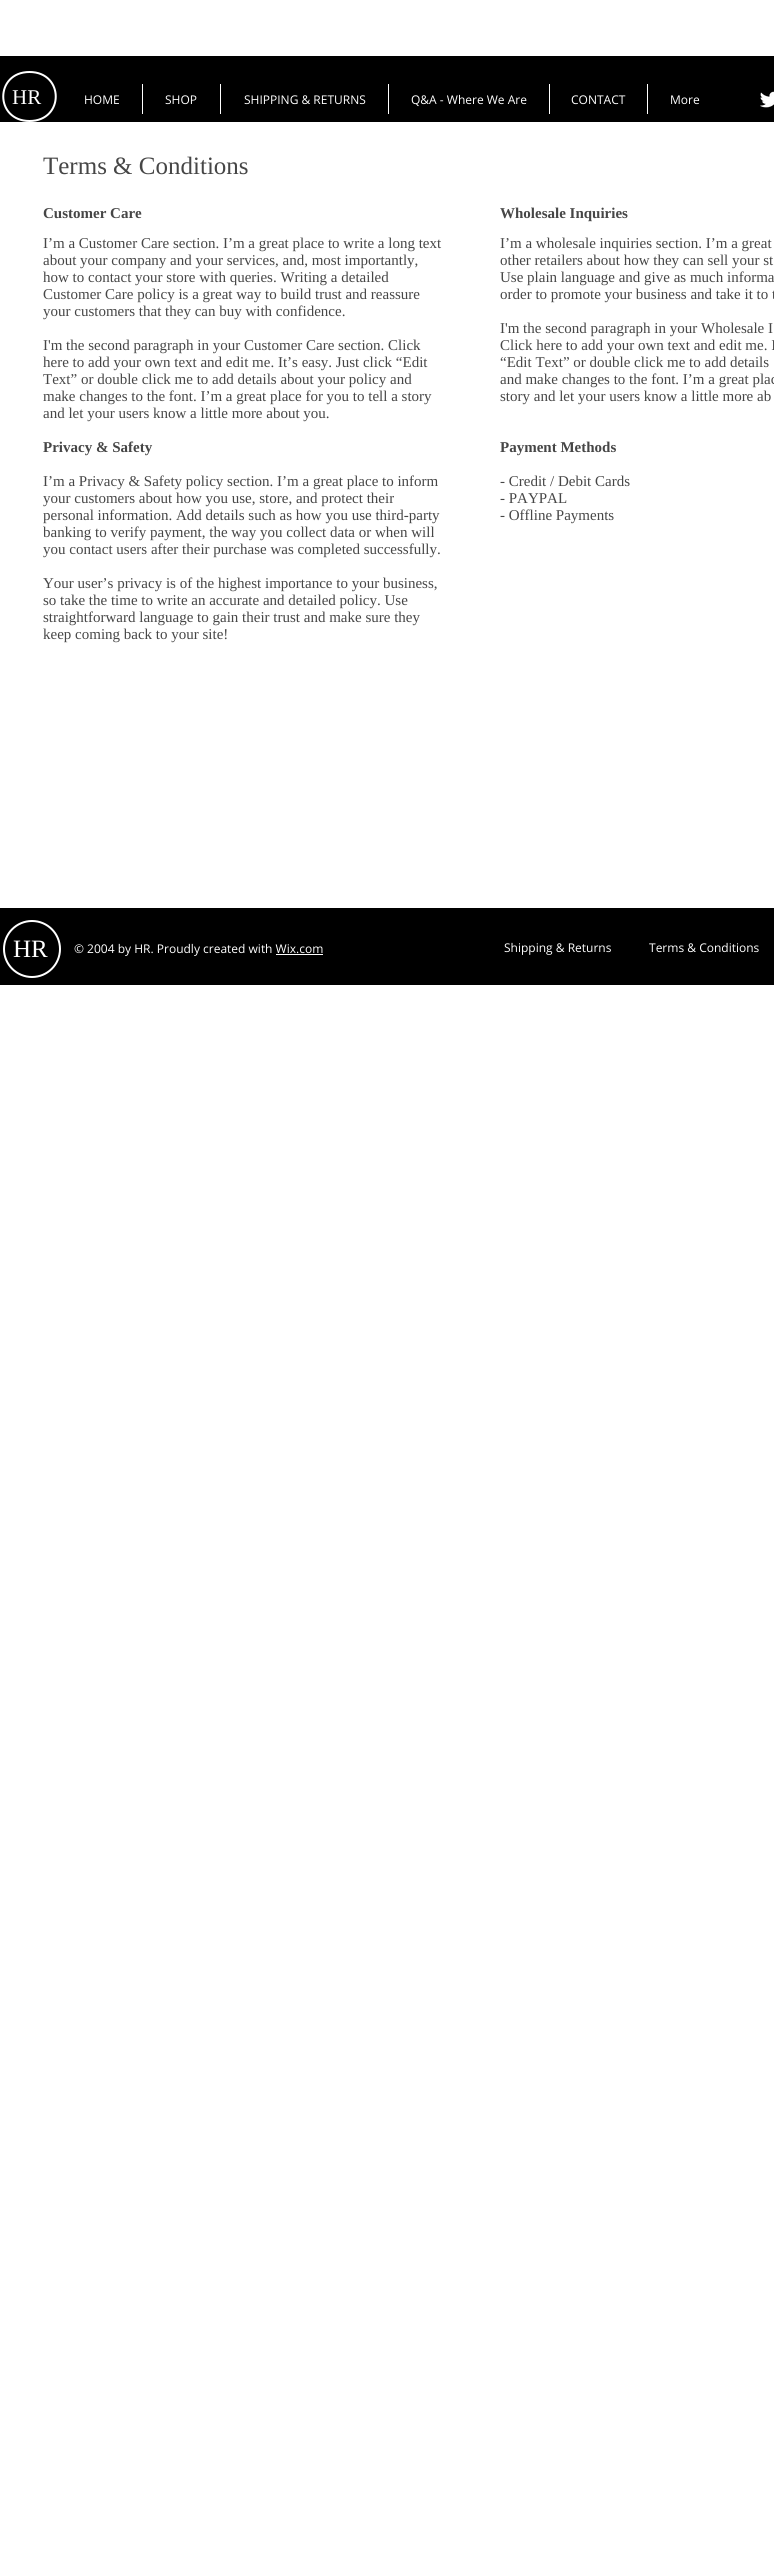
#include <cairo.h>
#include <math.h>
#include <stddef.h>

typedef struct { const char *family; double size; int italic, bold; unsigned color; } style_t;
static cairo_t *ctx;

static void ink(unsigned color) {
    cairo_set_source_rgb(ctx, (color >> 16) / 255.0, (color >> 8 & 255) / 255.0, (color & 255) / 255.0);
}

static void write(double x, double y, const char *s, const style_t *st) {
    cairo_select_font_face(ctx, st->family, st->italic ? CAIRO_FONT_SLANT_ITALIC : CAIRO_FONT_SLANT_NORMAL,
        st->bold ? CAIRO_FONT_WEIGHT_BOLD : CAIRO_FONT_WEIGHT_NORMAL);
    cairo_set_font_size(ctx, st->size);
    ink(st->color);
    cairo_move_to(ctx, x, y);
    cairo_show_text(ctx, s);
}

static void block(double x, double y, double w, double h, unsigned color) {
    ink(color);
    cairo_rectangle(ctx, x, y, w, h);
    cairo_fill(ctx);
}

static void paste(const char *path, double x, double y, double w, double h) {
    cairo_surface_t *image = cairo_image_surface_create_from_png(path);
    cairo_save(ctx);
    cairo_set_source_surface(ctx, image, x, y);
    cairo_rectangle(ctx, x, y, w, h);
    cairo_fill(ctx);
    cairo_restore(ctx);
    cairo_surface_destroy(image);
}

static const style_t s1 = {"Liberation Serif", 21, 0, 0, 0xffffff};
static const style_t s2 = {"Open Sans", 12, 0, 0, 0xffffff};
static const style_t s3 = {"Liberation Serif", 25, 0, 0, 0x464646};
static const style_t s4 = {"Liberation Serif", 15, 0, 1, 0x464646};
static const style_t s5 = {"Liberation Serif", 15, 0, 0, 0x464646};
static const style_t s6 = {"Liberation Serif", 25, 0, 0, 0xffffff};

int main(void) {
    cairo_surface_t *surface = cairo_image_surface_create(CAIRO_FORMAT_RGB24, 774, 2556);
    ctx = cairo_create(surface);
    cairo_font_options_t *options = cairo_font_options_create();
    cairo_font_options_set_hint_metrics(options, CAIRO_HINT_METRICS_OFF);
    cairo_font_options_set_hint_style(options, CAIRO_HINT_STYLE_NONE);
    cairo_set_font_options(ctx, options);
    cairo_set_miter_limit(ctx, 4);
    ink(0xffffff);
    cairo_paint(ctx);
    block(0, 56, 774, 66, 0x000000);
    cairo_new_path(ctx);
    cairo_move_to(ctx, 29.5, 72);
    cairo_curve_to(ctx, 64.5, 72, 64.5, 121, 29.5, 121);
    cairo_curve_to(ctx, -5.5, 121, -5.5, 72, 29.5, 72);
    cairo_close_path(ctx);
    ink(0xffffff);
    cairo_stroke(ctx);
    write(12, 104, "HR", &s1);
    write(84, 104, "HOME", &s2);
    block(142, 84, 1, 30, 0xffffff);
    write(165, 104, "SHOP", &s2);
    block(220, 84, 1, 30, 0xffffff);
    write(244, 104, "SHIPPING & RETURNS", &s2);
    block(388, 84, 1, 30, 0xffffff);
    write(411, 104, "Q&A - Where We Are", &s2);
    block(549, 84, 1, 30, 0xffffff);
    write(571, 104, "CONTACT", &s2);
    block(647, 84, 1, 30, 0xffffff);
    write(670, 104, "More", &s2);
    paste("pic1.png", 760, 91, 14, 17);
    write(43, 174, "Terms & Conditions", &s3);
    write(43, 218, "Customer Care", &s4);
    write(500, 218, "Wholesale Inquiries", &s4);
    write(43, 248, "I’m a Customer Care section. I’m a great place to write a long text", &s5);
    write(43, 265, "about your company and your services, and, most importantly,", &s5);
    write(43, 282, "how to contact your store with queries. Writing a detailed", &s5);
    write(43, 299, "Customer Care policy is a great way to build trust and reassure", &s5);
    write(43, 316, "your customers that they can buy with confidence.", &s5);
    write(43, 350, "I'm the second paragraph in your Customer Care section. Click", &s5);
    write(43, 367, "here to add your own text and edit me. It’s easy. Just click “Edit", &s5);
    write(43, 384, "Text” or double click me to add details about your policy and", &s5);
    write(43, 401, "make changes to the font. I’m a great place for you to tell a story", &s5);
    write(43, 418, "and let your users know a little more about you.", &s5);
    write(500, 248, "I’m a wholesale inquiries section. I’m a great", &s5);
    write(500, 265, "other retailers about how they can sell your st", &s5);
    write(500, 282, "Use plain language and give as much informa", &s5);
    write(500, 299, "order to promote your business and take it to t", &s5);
    write(500, 333, "I'm the second paragraph in your Wholesale I", &s5);
    write(500, 350, "Click here to add your own text and edit me. I", &s5);
    write(500, 367, "“Edit Text” or double click me to add details", &s5);
    write(500, 384, "and make changes to the font. I’m a great plac", &s5);
    write(500, 401, "story and let your users know a little more ab", &s5);
    write(43, 452, "Privacy & Safety", &s4);
    write(500, 452, "Payment Methods", &s4);
    write(43, 486, "I’m a Privacy & Safety policy section. I’m a great place to inform", &s5);
    write(43, 503, "your customers about how you use, store, and protect their", &s5);
    write(43, 520, "personal information. Add details such as how you use third-party", &s5);
    write(43, 537, "banking to verify payment, the way you collect data or when will", &s5);
    write(43, 554, "you contact users after their purchase was completed successfully.", &s5);
    write(43, 588, "Your user’s privacy is of the highest importance to your business,", &s5);
    write(43, 605, "so take the time to write an accurate and detailed policy. Use", &s5);
    write(43, 622, "straightforward language to gain their trust and make sure they", &s5);
    write(43, 639, "keep coming back to your site!", &s5);
    write(500, 486, "- Credit / Debit Cards", &s5);
    write(500, 503, "- PAYPAL", &s5);
    write(500, 520, "- Offline Payments", &s5);
    block(0, 908, 774, 77, 0x000000);
    cairo_new_path(ctx);
    cairo_arc(ctx, 32, 949, 28, 0, 2 * M_PI);
    ink(0xffffff);
    cairo_stroke(ctx);
    write(13, 957, "HR", &s6);
    write(74, 953, "© 2004 by HR. Proudly created with Wix.com", &s2);
    block(276, 954, 47, 1, 0xffffff);
    write(504, 952, "Shipping & Returns", &s2);
    write(649, 952, "Terms & Conditions", &s2);
    cairo_surface_write_to_png(surface, "screenshot.png");
    cairo_font_options_destroy(options);
    cairo_destroy(ctx);
    cairo_surface_destroy(surface);
    return 0;
}
